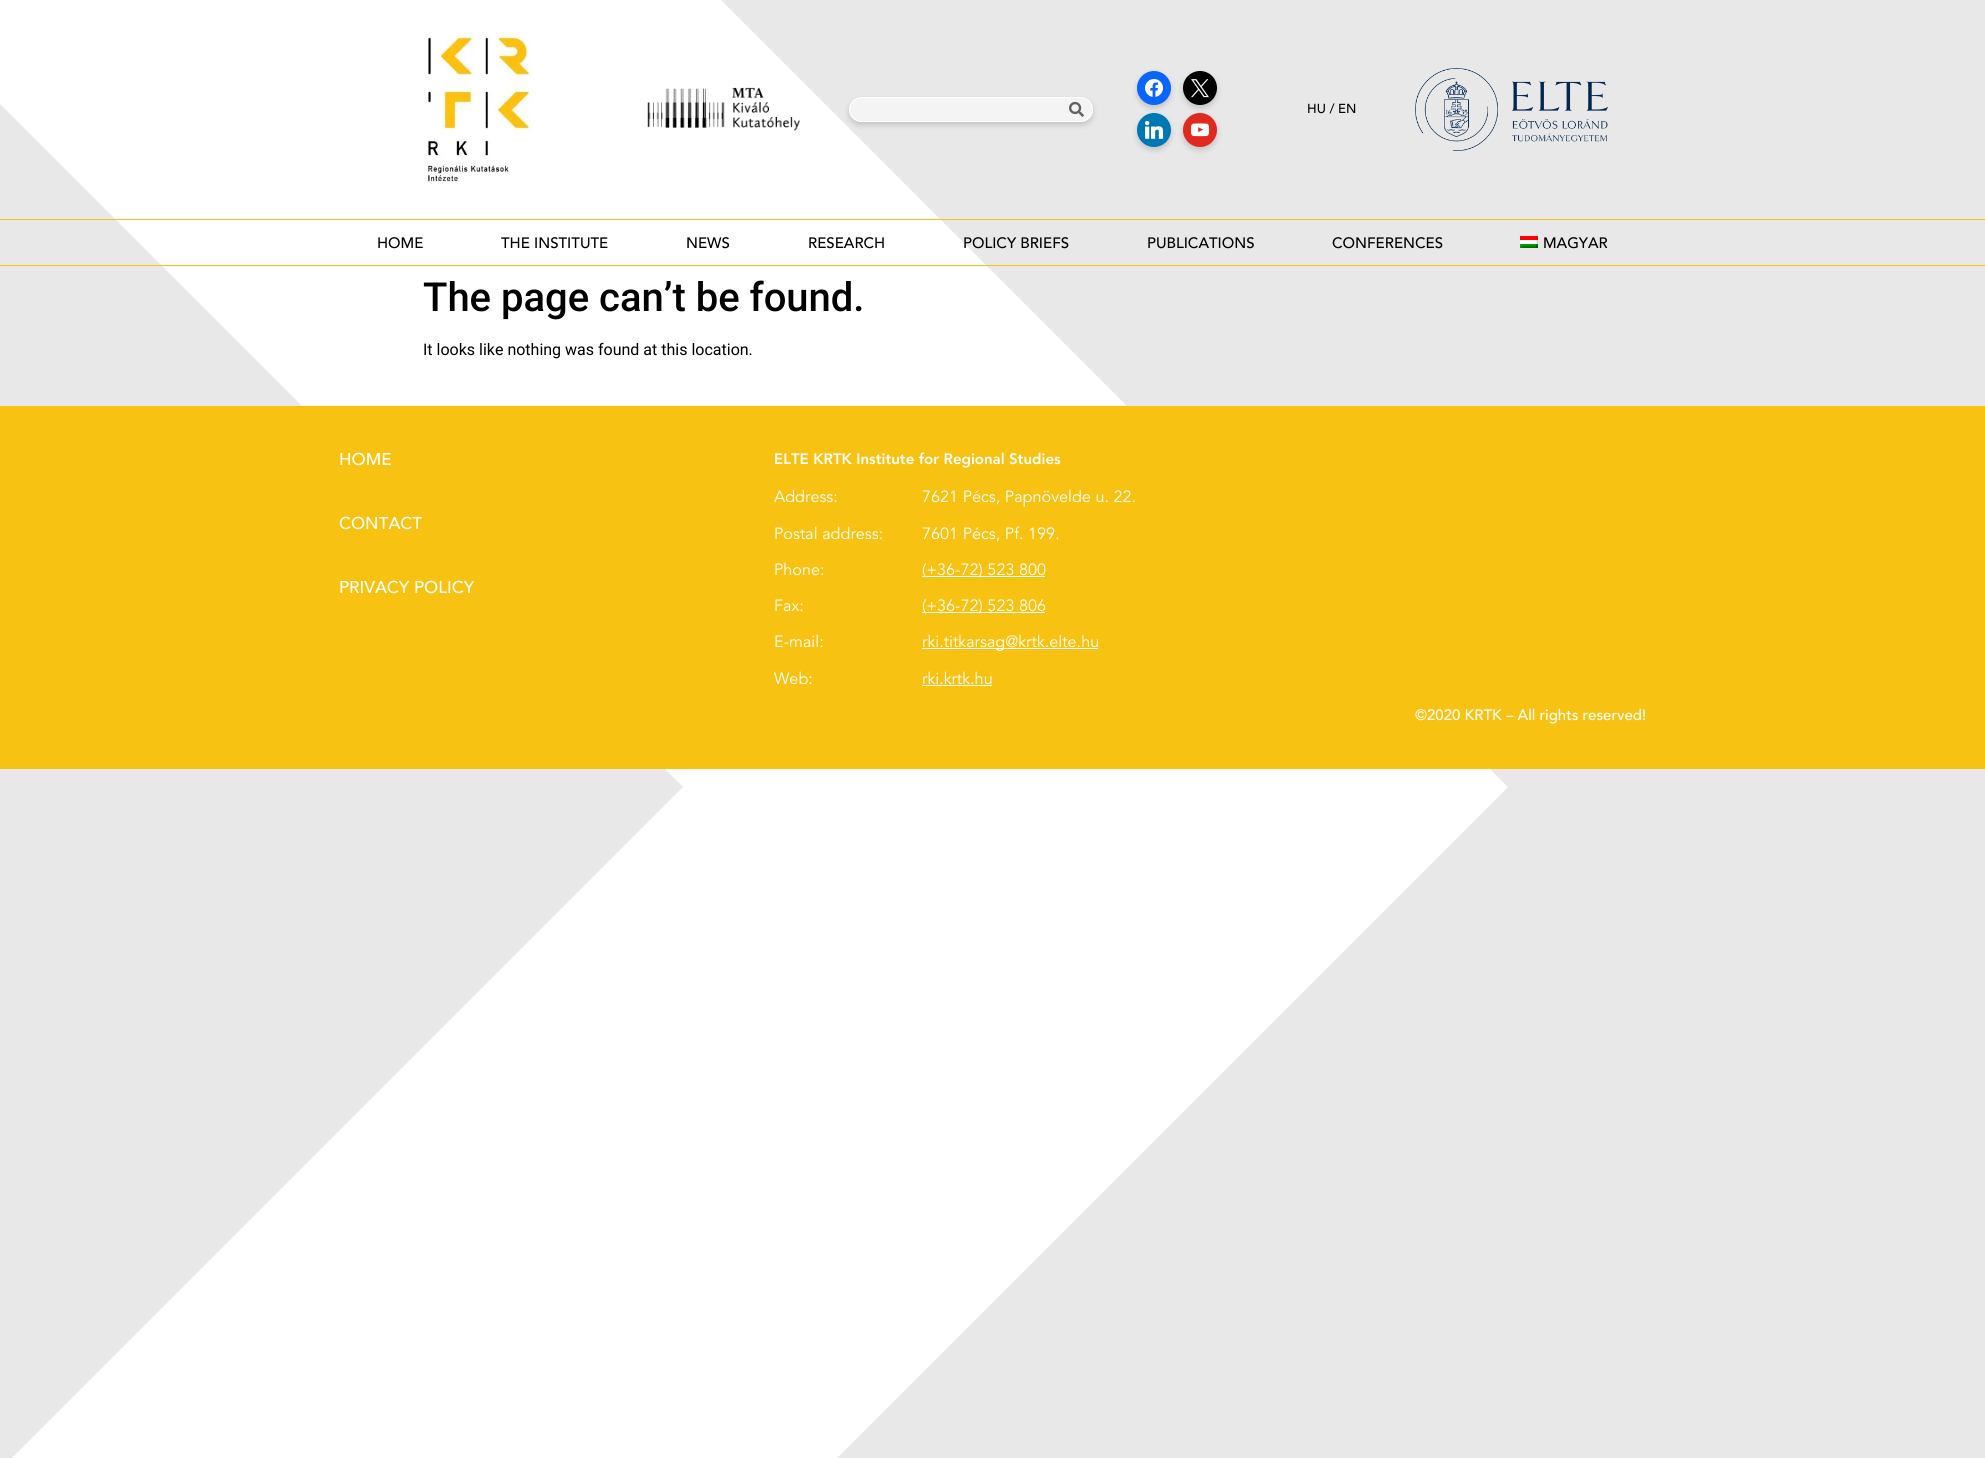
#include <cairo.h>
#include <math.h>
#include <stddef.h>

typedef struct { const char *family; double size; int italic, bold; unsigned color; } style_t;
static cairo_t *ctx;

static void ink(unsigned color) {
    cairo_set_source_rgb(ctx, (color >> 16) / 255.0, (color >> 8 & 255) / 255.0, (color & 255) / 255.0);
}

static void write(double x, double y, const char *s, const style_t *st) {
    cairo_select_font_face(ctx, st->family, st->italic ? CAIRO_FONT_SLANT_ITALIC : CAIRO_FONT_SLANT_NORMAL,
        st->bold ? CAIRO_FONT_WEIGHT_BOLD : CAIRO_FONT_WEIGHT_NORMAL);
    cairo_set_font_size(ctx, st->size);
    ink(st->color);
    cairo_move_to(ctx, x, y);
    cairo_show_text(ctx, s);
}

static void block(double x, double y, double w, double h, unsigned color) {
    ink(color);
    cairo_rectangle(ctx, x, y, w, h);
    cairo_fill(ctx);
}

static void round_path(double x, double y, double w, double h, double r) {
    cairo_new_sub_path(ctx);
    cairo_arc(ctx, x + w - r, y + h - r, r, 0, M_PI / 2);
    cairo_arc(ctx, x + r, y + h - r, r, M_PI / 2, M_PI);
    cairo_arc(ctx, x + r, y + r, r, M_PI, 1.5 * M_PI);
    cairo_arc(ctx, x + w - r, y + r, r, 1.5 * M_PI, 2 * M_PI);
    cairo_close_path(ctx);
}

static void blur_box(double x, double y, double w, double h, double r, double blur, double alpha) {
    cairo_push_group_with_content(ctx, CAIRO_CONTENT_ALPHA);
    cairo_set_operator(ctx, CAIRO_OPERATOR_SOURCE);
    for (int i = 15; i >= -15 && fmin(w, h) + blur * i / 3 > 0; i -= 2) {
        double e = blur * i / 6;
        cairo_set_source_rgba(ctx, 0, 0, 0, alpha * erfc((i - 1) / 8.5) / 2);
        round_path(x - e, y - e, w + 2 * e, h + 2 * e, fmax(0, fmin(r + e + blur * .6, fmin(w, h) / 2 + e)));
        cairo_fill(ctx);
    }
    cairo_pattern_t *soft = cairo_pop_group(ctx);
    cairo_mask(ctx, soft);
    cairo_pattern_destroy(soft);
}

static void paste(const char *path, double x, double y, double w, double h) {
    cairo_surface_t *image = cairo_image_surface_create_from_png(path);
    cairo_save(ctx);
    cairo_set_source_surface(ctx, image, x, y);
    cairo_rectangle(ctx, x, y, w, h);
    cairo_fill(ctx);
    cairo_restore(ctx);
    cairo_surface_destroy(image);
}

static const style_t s1 = {"Avenir Medium", 13, 0, 0, 0x000000};
static const style_t s2 = {"Avenir Medium", 15, 0, 0, 0x000000};
static const style_t s3 = {"Roboto Medium", 40, 0, 0, 0x000000};
static const style_t s4 = {"Roboto", 16, 0, 0, 0x000000};
static const style_t s5 = {"Avenir Medium", 17, 0, 0, 0xffffff};
static const style_t s6 = {"Avenir Black", 15, 0, 0, 0xffffff};
static const style_t s7 = {"Avenir", 16.25, 0, 0, 0xffffff};
static const style_t s8 = {"Avenir Medium", 15, 0, 0, 0xffffff};

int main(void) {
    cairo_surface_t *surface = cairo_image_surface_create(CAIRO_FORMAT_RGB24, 1985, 1458);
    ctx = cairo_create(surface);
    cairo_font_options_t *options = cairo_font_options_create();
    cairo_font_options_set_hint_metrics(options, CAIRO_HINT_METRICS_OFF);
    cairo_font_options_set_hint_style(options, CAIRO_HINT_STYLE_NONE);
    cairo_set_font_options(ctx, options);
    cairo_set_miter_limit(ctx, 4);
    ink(0xe8e8e8);
    cairo_paint(ctx);
    ink(0xffffff);
    cairo_new_path(ctx);
    cairo_move_to(ctx, -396, -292);
    cairo_line_to(ctx, 683, 787);
    cairo_line_to(ctx, -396, 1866);
    cairo_line_to(ctx, 429, 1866);
    cairo_line_to(ctx, 1508, 787);
    cairo_line_to(ctx, 429, -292);
    cairo_close_path(ctx);
    cairo_fill(ctx);
    paste("pic1.png", 427, 32, 105, 150);
    paste("pic2.png", 647, 87, 153, 44);
    cairo_save(ctx);
    cairo_set_fill_rule(ctx, CAIRO_FILL_RULE_EVEN_ODD);
    cairo_new_path(ctx);
    cairo_move_to(ctx, 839, 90);
    cairo_line_to(ctx, 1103, 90);
    cairo_line_to(ctx, 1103, 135);
    cairo_line_to(ctx, 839, 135);
    cairo_close_path(ctx);
    cairo_move_to(ctx, 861.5, 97);
    cairo_line_to(ctx, 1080.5, 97);
    cairo_curve_to(ctx, 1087.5, 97, 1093, 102.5, 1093, 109.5);
    cairo_curve_to(ctx, 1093, 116.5, 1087.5, 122, 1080.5, 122);
    cairo_line_to(ctx, 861.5, 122);
    cairo_curve_to(ctx, 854.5, 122, 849, 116.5, 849, 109.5);
    cairo_curve_to(ctx, 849, 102.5, 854.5, 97, 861.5, 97);
    cairo_close_path(ctx);
    cairo_clip(ctx);
    ink(0x000000);
    blur_box(849, 100, 244, 25, 12.5, 3, 0.16);
    cairo_restore(ctx);
    cairo_set_source_rgba(ctx, 1, 1, 1, 0.5);
    round_path(849.5, 97.5, 243, 24, 12);
    cairo_fill_preserve(ctx);
    ink(0xffffff);
    cairo_set_line_width(ctx, 1);
    cairo_stroke(ctx);
    paste("pic3.png", 1069, 101, 15, 16);
    ink(0x000000);
    blur_box(1137, 74, 34, 34, 17, 3, 0.16);
    ink(0x0866ff);
    cairo_arc(ctx, 1154, 88, 17, 0, 2 * M_PI);
    cairo_fill(ctx);
    paste("pic4.png", 1145, 79, 18, 18);
    ink(0x000000);
    blur_box(1183, 74, 34, 34, 17, 3, 0.16);
    ink(0x000000);
    cairo_arc(ctx, 1200, 88, 17, 0, 2 * M_PI);
    cairo_fill(ctx);
    paste("pic5.png", 1191, 79, 18, 19);
    ink(0x000000);
    blur_box(1137, 116, 34, 34, 17, 3, 0.16);
    ink(0x0077b5);
    cairo_arc(ctx, 1154, 130, 17, 0, 2 * M_PI);
    cairo_fill(ctx);
    paste("pic6.png", 1145, 120, 19, 19);
    ink(0x000000);
    blur_box(1183, 116, 34, 34, 17, 3, 0.16);
    ink(0xe02a20);
    cairo_arc(ctx, 1200, 130, 17, 0, 2 * M_PI);
    cairo_fill(ctx);
    paste("pic7.png", 1191, 123, 19, 14);
    write(1307, 113, "HU / EN", &s1);
    paste("pic8.png", 1415, 68, 193, 83);
    block(0, 219, 1985, 1, 0xf8c212);
    block(0, 265, 1985, 1, 0xf8c212);
    write(377, 248, "HOME", &s2);
    write(501, 248, "THE INSTITUTE", &s2);
    write(686, 248, "NEWS", &s2);
    write(808, 248, "RESEARCH", &s2);
    write(963, 248, "POLICY BRIEFS", &s2);
    write(1147, 248, "PUBLICATIONS", &s2);
    write(1332, 248, "CONFERENCES", &s2);
    paste("pic9.png", 1520, 236, 18, 12);
    write(1543, 248, "MAGYAR", &s2);
    write(423, 311, "The page can’t be found.", &s3);
    write(423, 355, "It looks like nothing was found at this location.", &s4);
    block(0, 406, 1985, 363, 0xf8c212);
    write(339, 465, "HOME", &s5);
    write(339, 529, "CONTACT", &s5);
    write(339, 593, "PRIVACY POLICY", &s5);
    write(774, 464, "ELTE KRTK Institute for Regional Studies", &s6);
    write(774, 502, "Address:", &s7);
    write(922, 502, "7621 Pécs, Papnövelde u. 22.", &s7);
    write(774, 539, "Postal address:", &s7);
    write(922, 539, "7601 Pécs, Pf. 199.", &s7);
    write(774, 575, "Phone:", &s7);
    block(922, 576, 123, 1, 0xffffff);
    write(922, 575, "(+36-72) 523 800", &s7);
    write(774, 611, "Fax:", &s7);
    block(922, 612, 123, 1, 0xffffff);
    write(922, 611, "(+36-72) 523 806", &s7);
    write(774, 647, "E-mail:", &s7);
    block(922, 648, 176, 1, 0xffffff);
    write(922, 647, "rki.titkarsag@krtk.elte.hu", &s7);
    write(774, 684, "Web:", &s7);
    write(922, 684, "rki.krtk.hu", &s7);
    block(922, 685, 70, 1, 0xffffff);
    write(1415, 720, "©2020 KRTK – All rights reserved!", &s8);
    cairo_surface_write_to_png(surface, "screenshot.png");
    cairo_font_options_destroy(options);
    cairo_destroy(ctx);
    cairo_surface_destroy(surface);
    return 0;
}
